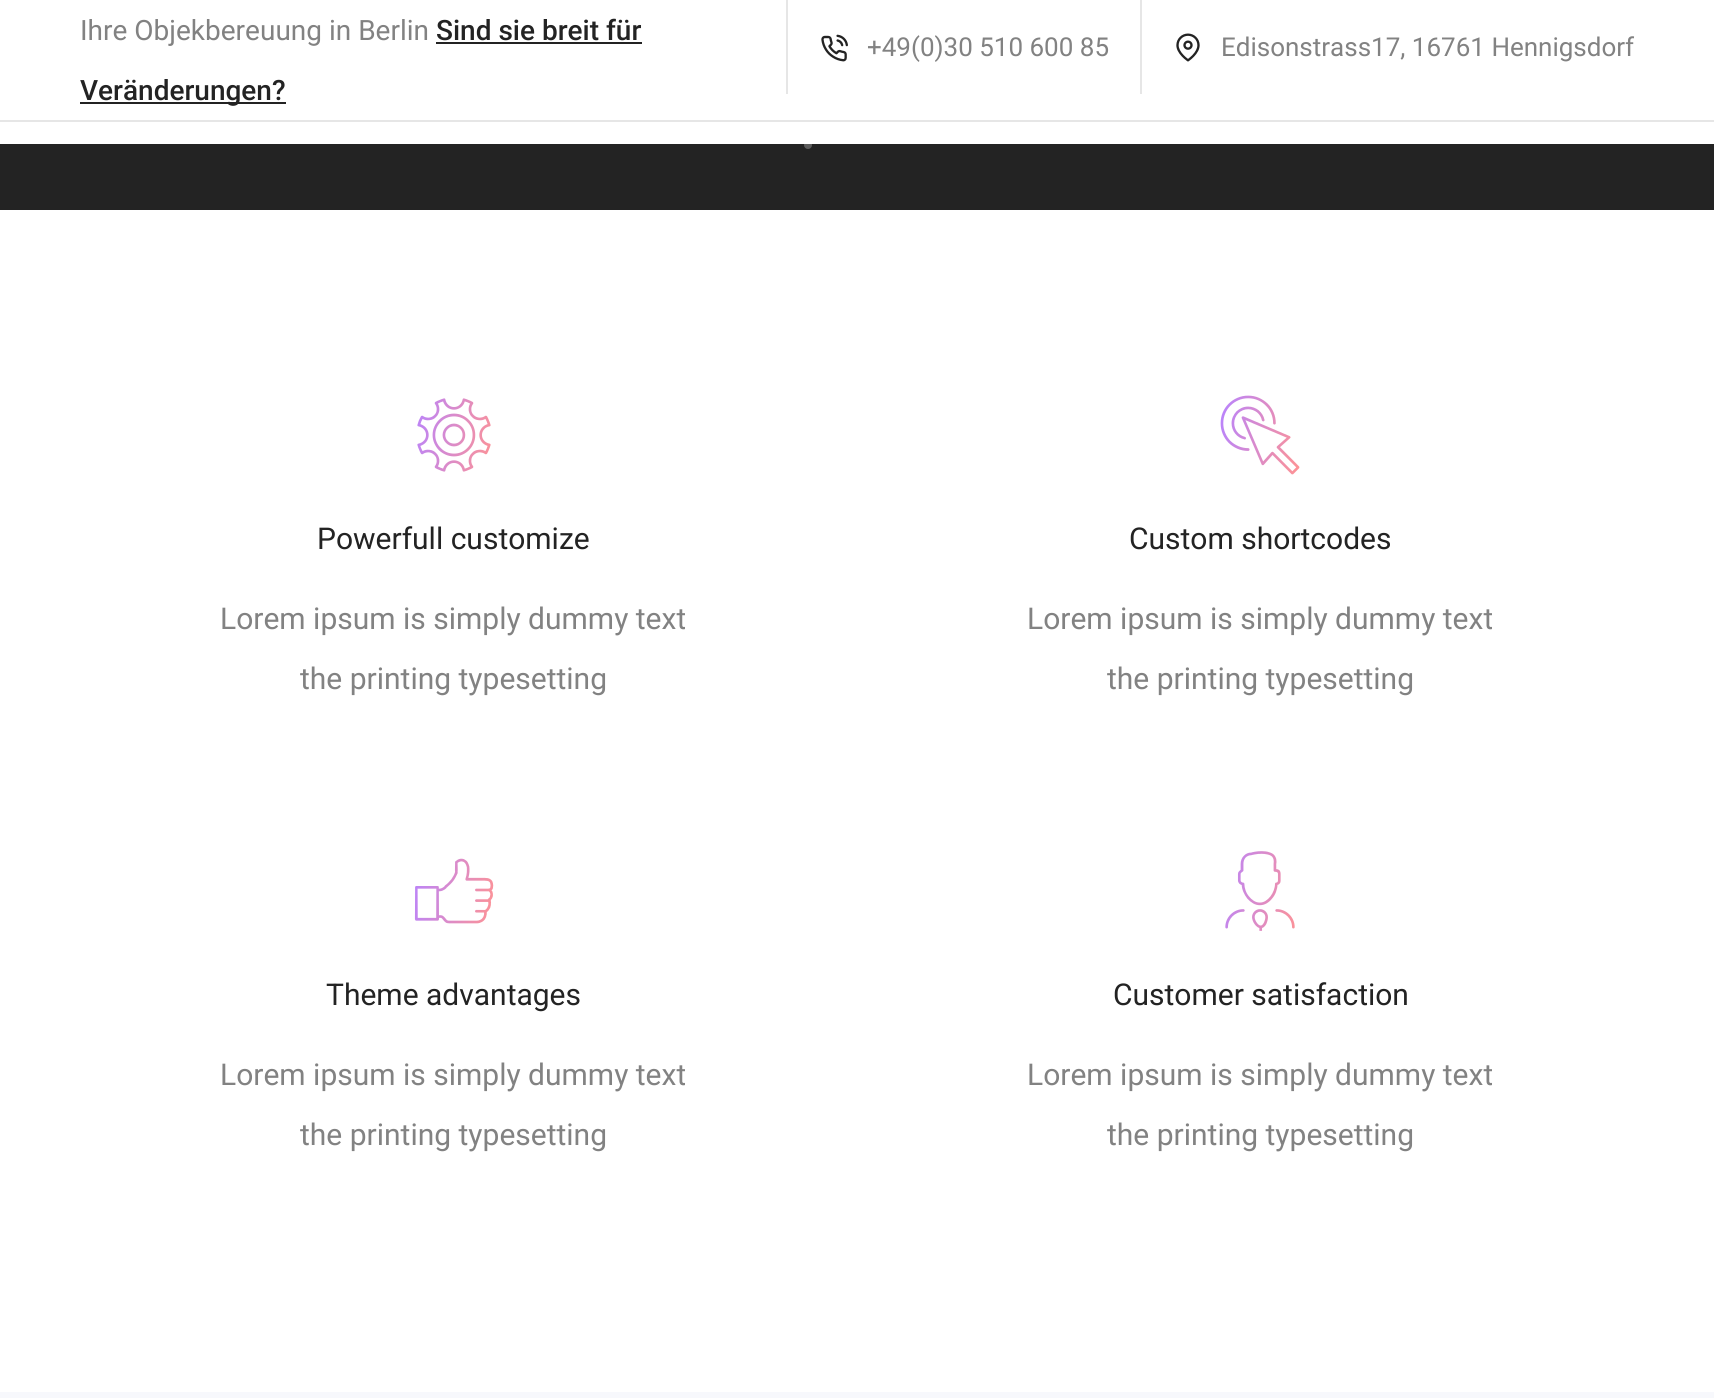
#include <cairo.h>
#include <math.h>
#include <stddef.h>

typedef struct { const char *family; double size; int italic, bold; unsigned color; } style_t;
static cairo_t *ctx;

static void ink(unsigned color) {
    cairo_set_source_rgb(ctx, (color >> 16) / 255.0, (color >> 8 & 255) / 255.0, (color & 255) / 255.0);
}

static void write(double x, double y, const char *s, const style_t *st) {
    cairo_select_font_face(ctx, st->family, st->italic ? CAIRO_FONT_SLANT_ITALIC : CAIRO_FONT_SLANT_NORMAL,
        st->bold ? CAIRO_FONT_WEIGHT_BOLD : CAIRO_FONT_WEIGHT_NORMAL);
    cairo_set_font_size(ctx, st->size);
    ink(st->color);
    cairo_move_to(ctx, x, y);
    cairo_show_text(ctx, s);
}

static void block(double x, double y, double w, double h, unsigned color) {
    ink(color);
    cairo_rectangle(ctx, x, y, w, h);
    cairo_fill(ctx);
}

static void paste(const char *path, double x, double y, double w, double h) {
    cairo_surface_t *image = cairo_image_surface_create_from_png(path);
    cairo_save(ctx);
    cairo_set_source_surface(ctx, image, x, y);
    cairo_rectangle(ctx, x, y, w, h);
    cairo_fill(ctx);
    cairo_restore(ctx);
    cairo_surface_destroy(image);
}

static const style_t s1 = {"Roboto", 28, 0, 0, 0x828282};
static const style_t s2 = {"Roboto Medium", 28, 0, 0, 0x232323};
static const style_t s3 = {"Roboto", 26, 0, 0, 0x828282};
static const style_t s4 = {"Roboto", 30, 0, 0, 0x232323};
static const style_t s5 = {"Roboto", 30, 0, 0, 0x828282};

int main(void) {
    cairo_surface_t *surface = cairo_image_surface_create(CAIRO_FORMAT_RGB24, 1714, 1398);
    ctx = cairo_create(surface);
    cairo_font_options_t *options = cairo_font_options_create();
    cairo_font_options_set_hint_metrics(options, CAIRO_HINT_METRICS_OFF);
    cairo_font_options_set_hint_style(options, CAIRO_HINT_STYLE_NONE);
    cairo_set_font_options(ctx, options);
    cairo_set_miter_limit(ctx, 4);
    ink(0xffffff);
    cairo_paint(ctx);
    block(0, 120, 1714, 2, 0xe6e6e6);
    write(80, 40, "Ihre Objekbereuung in Berlin", &s1);
    write(436, 40, "Sind sie breit für", &s2);
    block(436, 42, 206, 2, 0x232323);
    block(80, 102, 206, 2, 0x232323);
    write(80, 100, "Veränderungen?", &s2);
    block(786, 0, 2, 94, 0xe6e6e6);
    paste("pic1.png", 821, 34, 27, 28);
    write(867, 56, "+49(0)30 510 600 85", &s3);
    block(1140, 0, 2, 94, 0xe6e6e6);
    paste("pic2.png", 1176, 33, 24, 29);
    write(1221, 56, "Edisonstrass17, 16761 Hennigsdorf", &s3);
    block(0, 144, 1714, 66, 0x232323);
    paste("pic3.png", 804, 144, 8, 5);
    paste("pic4.png", 417, 398, 74, 74);
    write(317, 549, "Powerfull customize", &s4);
    write(220, 629, "Lorem ipsum is simply dummy text", &s5);
    write(300, 689, "the printing typesetting", &s5);
    paste("pic5.png", 1220, 395, 80, 80);
    write(1129, 549, "Custom shortcodes", &s4);
    write(1027, 629, "Lorem ipsum is simply dummy text", &s5);
    write(1107, 689, "the printing typesetting", &s5);
    paste("pic6.png", 414, 858, 80, 66);
    write(326, 1005, "Theme advantages", &s4);
    write(220, 1085, "Lorem ipsum is simply dummy text", &s5);
    write(300, 1145, "the printing typesetting", &s5);
    paste("pic7.png", 1225, 851, 70, 80);
    write(1113, 1005, "Customer satisfaction", &s4);
    write(1027, 1085, "Lorem ipsum is simply dummy text", &s5);
    write(1107, 1145, "the printing typesetting", &s5);
    block(0, 1392, 1714, 6, 0xf7f8fc);
    cairo_surface_write_to_png(surface, "screenshot.png");
    cairo_font_options_destroy(options);
    cairo_destroy(ctx);
    cairo_surface_destroy(surface);
    return 0;
}
